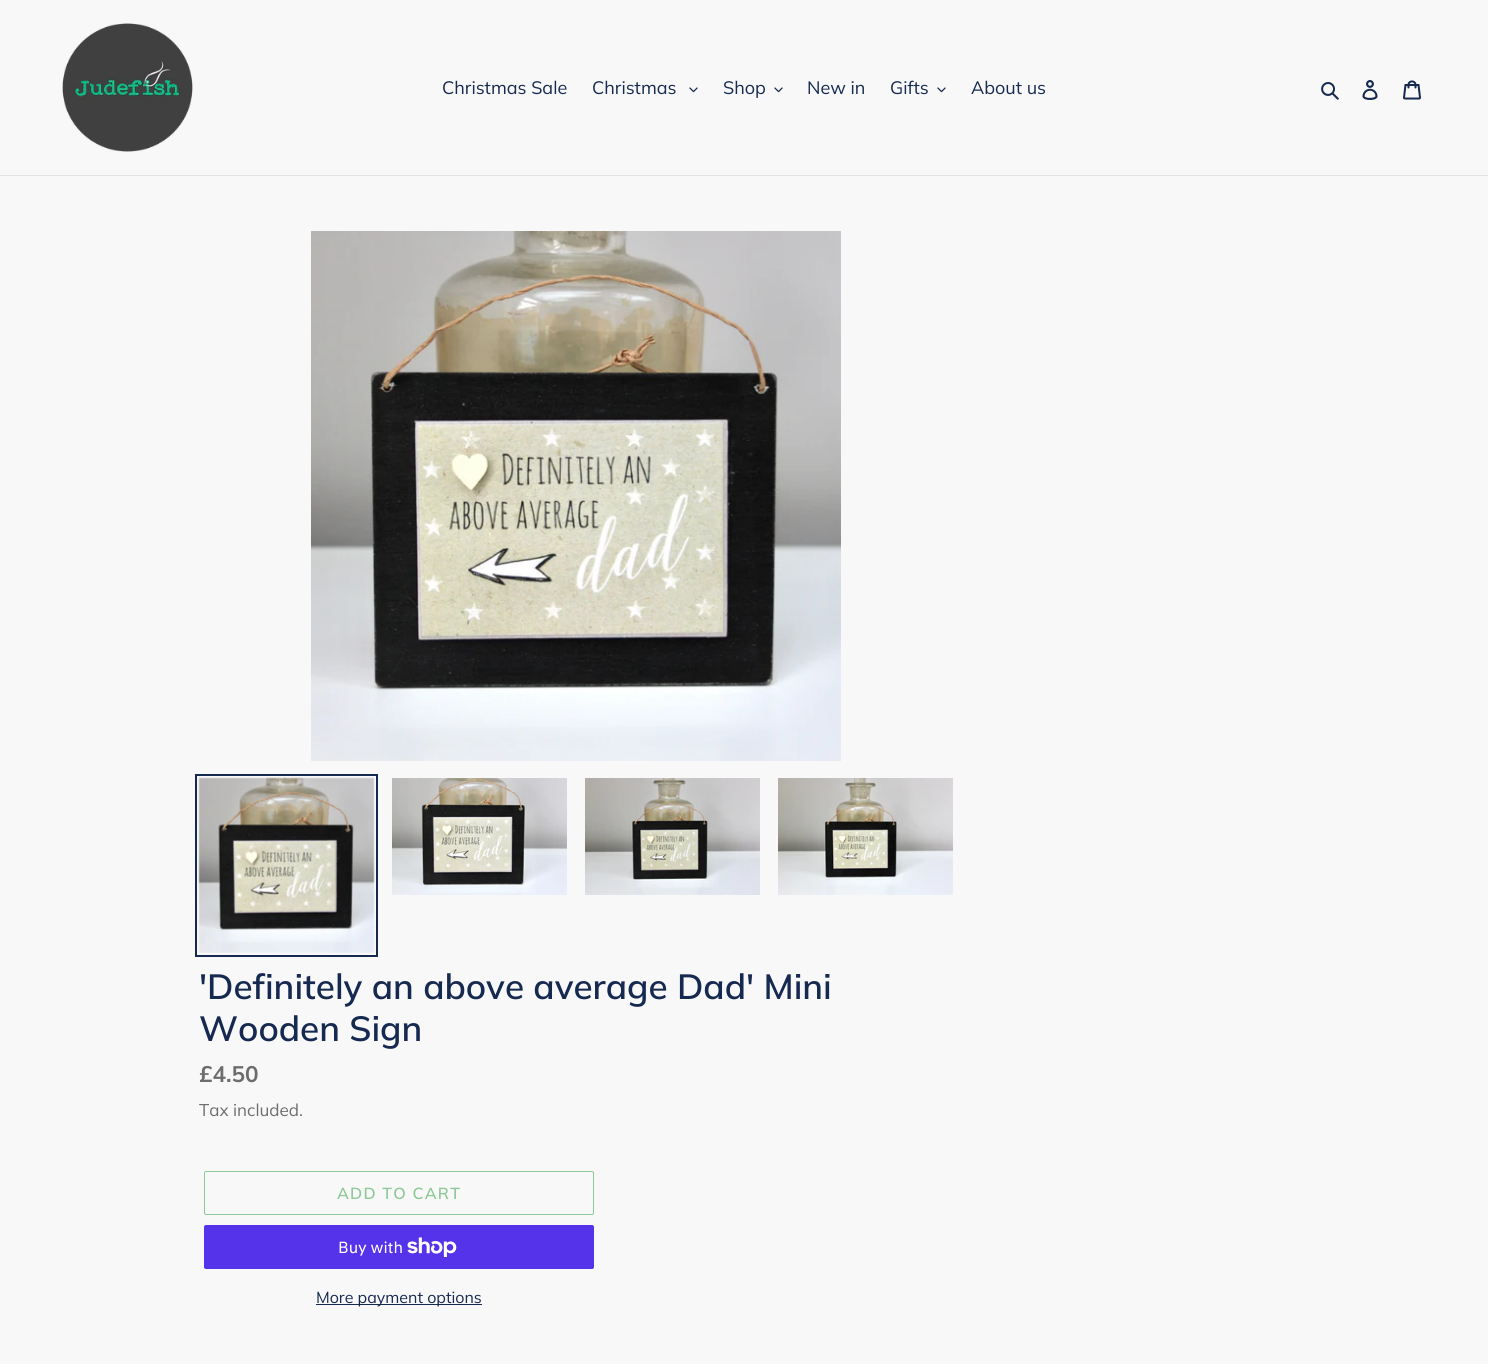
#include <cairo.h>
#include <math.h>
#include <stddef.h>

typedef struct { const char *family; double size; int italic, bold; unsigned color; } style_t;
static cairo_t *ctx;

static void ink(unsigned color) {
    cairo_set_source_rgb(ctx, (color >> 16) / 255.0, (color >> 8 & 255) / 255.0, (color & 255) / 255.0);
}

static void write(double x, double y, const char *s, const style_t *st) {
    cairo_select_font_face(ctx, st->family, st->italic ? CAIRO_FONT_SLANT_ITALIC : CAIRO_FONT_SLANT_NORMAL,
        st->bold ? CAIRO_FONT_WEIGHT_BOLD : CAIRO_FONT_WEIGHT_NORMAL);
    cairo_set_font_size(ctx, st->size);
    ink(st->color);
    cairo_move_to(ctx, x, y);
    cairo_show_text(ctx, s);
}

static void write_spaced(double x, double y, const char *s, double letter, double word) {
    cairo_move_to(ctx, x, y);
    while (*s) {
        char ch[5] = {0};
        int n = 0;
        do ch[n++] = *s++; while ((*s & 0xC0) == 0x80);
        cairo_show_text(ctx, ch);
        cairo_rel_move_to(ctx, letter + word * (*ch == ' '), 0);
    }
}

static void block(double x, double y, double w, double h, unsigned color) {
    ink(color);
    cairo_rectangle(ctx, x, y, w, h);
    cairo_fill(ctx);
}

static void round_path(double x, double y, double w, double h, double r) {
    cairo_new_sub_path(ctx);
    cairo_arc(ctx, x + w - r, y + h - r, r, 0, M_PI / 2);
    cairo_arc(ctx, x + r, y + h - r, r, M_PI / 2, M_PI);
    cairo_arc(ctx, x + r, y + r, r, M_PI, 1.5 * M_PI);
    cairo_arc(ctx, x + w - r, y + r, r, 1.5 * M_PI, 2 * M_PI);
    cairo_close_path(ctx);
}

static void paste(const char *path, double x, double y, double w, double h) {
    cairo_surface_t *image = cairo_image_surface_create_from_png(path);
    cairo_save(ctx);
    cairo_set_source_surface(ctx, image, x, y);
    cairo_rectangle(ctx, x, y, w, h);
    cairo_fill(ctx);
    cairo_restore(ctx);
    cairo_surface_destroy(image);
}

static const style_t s1 = {"Muli", 18, 0, 0, 0x162950};
static const style_t s2 = {"Muli SemiBold", 35, 0, 0, 0x162950};
static const style_t s3 = {"Muli", 22.5, 0, 1, 0x6d6d6d};
static const style_t s4 = {"Muli", 17, 0, 0, 0x6d6d6d};
static const style_t s5 = {"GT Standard", 16, 0, 0, 0xffffff};
static const style_t s6 = {"Muli", 16, 0, 0, 0x162950};

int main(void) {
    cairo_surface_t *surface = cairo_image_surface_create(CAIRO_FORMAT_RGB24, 1488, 1364);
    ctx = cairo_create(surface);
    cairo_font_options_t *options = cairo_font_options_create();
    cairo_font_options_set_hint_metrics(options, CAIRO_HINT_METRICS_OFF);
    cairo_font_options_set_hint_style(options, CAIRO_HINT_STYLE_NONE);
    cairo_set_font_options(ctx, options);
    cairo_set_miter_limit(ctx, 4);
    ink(0xf8f8f8);
    cairo_paint(ctx);
    block(0, 175, 1488, 1, 0xe4e4e4);
    paste("pic1.png", 62, 23, 131, 129);
    write(442, 94, "Christmas Sale", &s1);
    write(592, 94, "Christmas", &s1);
    paste("pic2.png", 689, 87, 9, 6);
    write(723, 94, "Shop", &s1);
    paste("pic2.png", 774, 87, 9, 6);
    write(807, 94, "New in", &s1);
    write(890, 94, "Gifts", &s1);
    paste("pic2.png", 937, 87, 9, 6);
    write(971, 94, "About us", &s1);
    paste("pic3.png", 1321, 82, 18, 18);
    paste("pic4.png", 1362, 80, 16, 20);
    paste("pic5.png", 1403, 80, 18, 20);
    paste("pic6.png", 311, 231, 530, 530);
    cairo_rectangle(ctx, 196, 775, 181, 181);
    cairo_stroke(ctx);
    paste("pic7.png", 198, 777, 177, 176);
    paste("pic8.png", 392, 778, 175, 117);
    paste("pic9.png", 585, 778, 175, 117);
    paste("pic10.png", 778, 778, 175, 117);
    write(199, 999, "'Definitely an above average Dad' Mini", &s2);
    write(199, 1041, "Wooden Sign", &s2);
    write(199, 1082, "£4.50", &s3);
    write(199, 1116, "Tax included.", &s4);
    round_path(204.5, 1171.5, 389, 43, 1.5);
    ink(0x8ec997);
    cairo_set_line_width(ctx, 1);
    cairo_stroke(ctx);
    cairo_select_font_face(ctx, "Muli SemiBold", CAIRO_FONT_SLANT_NORMAL, CAIRO_FONT_WEIGHT_NORMAL);
    cairo_set_font_size(ctx, 16);
    write_spaced(337, 1199, "ADD TO CART", 1.25, 0);
    ink(0x5433eb);
    round_path(204, 1225, 390, 44, 2);
    cairo_fill(ctx);
    write(338, 1253, "Buy with", &s5);
    paste("pic11.png", 407, 1237, 50, 20);
    block(316, 1304, 166, 1, 0x162950);
    write(316, 1303, "More payment options", &s6);
    cairo_surface_write_to_png(surface, "screenshot.png");
    cairo_font_options_destroy(options);
    cairo_destroy(ctx);
    cairo_surface_destroy(surface);
    return 0;
}
